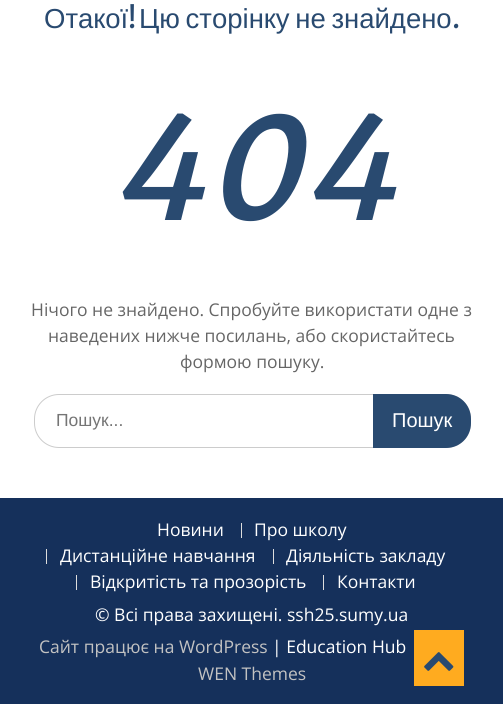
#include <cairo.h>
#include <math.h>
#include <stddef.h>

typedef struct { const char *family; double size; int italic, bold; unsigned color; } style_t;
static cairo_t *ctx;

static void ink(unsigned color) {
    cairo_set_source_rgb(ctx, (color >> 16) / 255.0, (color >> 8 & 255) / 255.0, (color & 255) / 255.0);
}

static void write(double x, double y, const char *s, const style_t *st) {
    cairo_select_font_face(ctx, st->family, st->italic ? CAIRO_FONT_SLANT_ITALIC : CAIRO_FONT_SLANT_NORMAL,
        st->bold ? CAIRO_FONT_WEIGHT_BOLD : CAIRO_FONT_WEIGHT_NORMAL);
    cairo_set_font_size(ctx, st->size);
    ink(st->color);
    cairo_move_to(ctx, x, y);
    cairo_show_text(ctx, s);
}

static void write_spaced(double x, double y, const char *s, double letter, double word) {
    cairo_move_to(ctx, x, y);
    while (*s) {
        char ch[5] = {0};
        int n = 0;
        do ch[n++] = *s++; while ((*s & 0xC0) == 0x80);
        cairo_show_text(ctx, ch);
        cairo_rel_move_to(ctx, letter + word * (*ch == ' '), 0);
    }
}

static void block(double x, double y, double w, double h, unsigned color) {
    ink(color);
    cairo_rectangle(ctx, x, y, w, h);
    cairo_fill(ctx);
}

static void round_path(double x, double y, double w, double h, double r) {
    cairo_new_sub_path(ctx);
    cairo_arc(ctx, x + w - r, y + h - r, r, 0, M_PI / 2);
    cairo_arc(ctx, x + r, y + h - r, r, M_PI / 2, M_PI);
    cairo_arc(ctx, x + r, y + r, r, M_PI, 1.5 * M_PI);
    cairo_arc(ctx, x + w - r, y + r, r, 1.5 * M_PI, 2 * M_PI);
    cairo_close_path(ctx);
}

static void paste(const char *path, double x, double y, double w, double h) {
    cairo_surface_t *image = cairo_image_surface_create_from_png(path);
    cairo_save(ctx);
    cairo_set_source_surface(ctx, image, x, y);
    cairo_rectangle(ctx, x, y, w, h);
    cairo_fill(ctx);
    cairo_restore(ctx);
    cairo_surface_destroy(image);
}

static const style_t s1 = {"Liberation Sans", 27.5, 0, 0, 0x294a70};
static const style_t s2 = {"Merriweather Sans", 27.5, 0, 0, 0x294a70};
static const style_t s3 = {"Merriweather Sans", 141, 1, 0, 0x294a70};
static const style_t s4 = {"Open Sans", 17.5, 0, 0, 0x666666};
static const style_t s5 = {"Liberation Sans", 17.5, 0, 0, 0x757575};
static const style_t s6 = {"Liberation Sans", 20, 0, 0, 0xffffff};
static const style_t s7 = {"Open Sans", 17.5, 0, 0, 0xffffff};
static const style_t s8 = {"Open Sans", 17.5, 0, 0, 0xc2c2c2};

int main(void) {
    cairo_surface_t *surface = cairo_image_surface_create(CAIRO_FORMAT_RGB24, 503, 704);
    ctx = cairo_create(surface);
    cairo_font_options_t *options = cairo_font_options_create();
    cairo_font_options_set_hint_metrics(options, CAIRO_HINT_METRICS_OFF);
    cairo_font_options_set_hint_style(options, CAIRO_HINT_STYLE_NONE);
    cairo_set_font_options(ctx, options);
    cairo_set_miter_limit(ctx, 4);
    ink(0xffffff);
    cairo_paint(ctx);
    write(44, 28, "Отакої", &s1);
    write(128, 28, "!", &s2);
    cairo_select_font_face(ctx, "Liberation Sans", CAIRO_FONT_SLANT_NORMAL, CAIRO_FONT_WEIGHT_NORMAL);
    write_spaced(139, 28, "Цю сторінку не знайдено", 0, -2);
    write(452, 28, ".", &s2);
    write(108, 220, "404", &s3);
    write(31, 316, "Нічого не знайдено. Спробуйте використати одне з", &s4);
    write(48, 342, "наведених нижче посилань, або скористайтесь", &s4);
    write(180, 368, "формою пошуку.", &s4);
    round_path(34.5, 394.5, 436, 53, 24.5);
    ink(0xcccccc);
    cairo_set_line_width(ctx, 1);
    cairo_stroke(ctx);
    write(56, 426, "Пошук...", &s5);
    ink(0x294a70);
    cairo_new_path(ctx);
    cairo_move_to(ctx, 373, 394);
    cairo_line_to(ctx, 446, 394);
    cairo_curve_to(ctx, 460, 394, 471, 405, 471, 419);
    cairo_line_to(ctx, 471, 423);
    cairo_curve_to(ctx, 471, 437, 460, 448, 446, 448);
    cairo_line_to(ctx, 373, 448);
    cairo_close_path(ctx);
    cairo_fill(ctx);
    write(392, 427, "Пошук", &s6);
    block(0, 498, 503, 206, 0x15305b);
    write(157, 536, "Новини", &s7);
    block(241, 523, 1, 15, 0xdddddd);
    write(254, 536, "Про школу", &s7);
    block(46, 549, 1, 15, 0xdddddd);
    write(60, 562, "Дистанційне навчання", &s7);
    block(273, 549, 1, 15, 0xdddddd);
    write(286, 562, "Діяльність закладу", &s7);
    block(76, 575, 1, 15, 0xdddddd);
    write(90, 588, "Відкритість та прозорість", &s7);
    block(323, 575, 1, 15, 0xdddddd);
    write(337, 588, "Контакти", &s7);
    write(95, 621, "© Всі права захищені. ssh25.sumy.ua", &s7);
    write(39, 653, "Сайт працює на WordPress", &s8);
    write(272, 653, "| Education Hub", &s7);
    write(198, 680, "WEN Themes", &s8);
    block(414, 630, 50, 56, 0xffab1f);
    paste("pic1.png", 424, 652, 30, 19);
    cairo_surface_write_to_png(surface, "screenshot.png");
    cairo_font_options_destroy(options);
    cairo_destroy(ctx);
    cairo_surface_destroy(surface);
    return 0;
}
